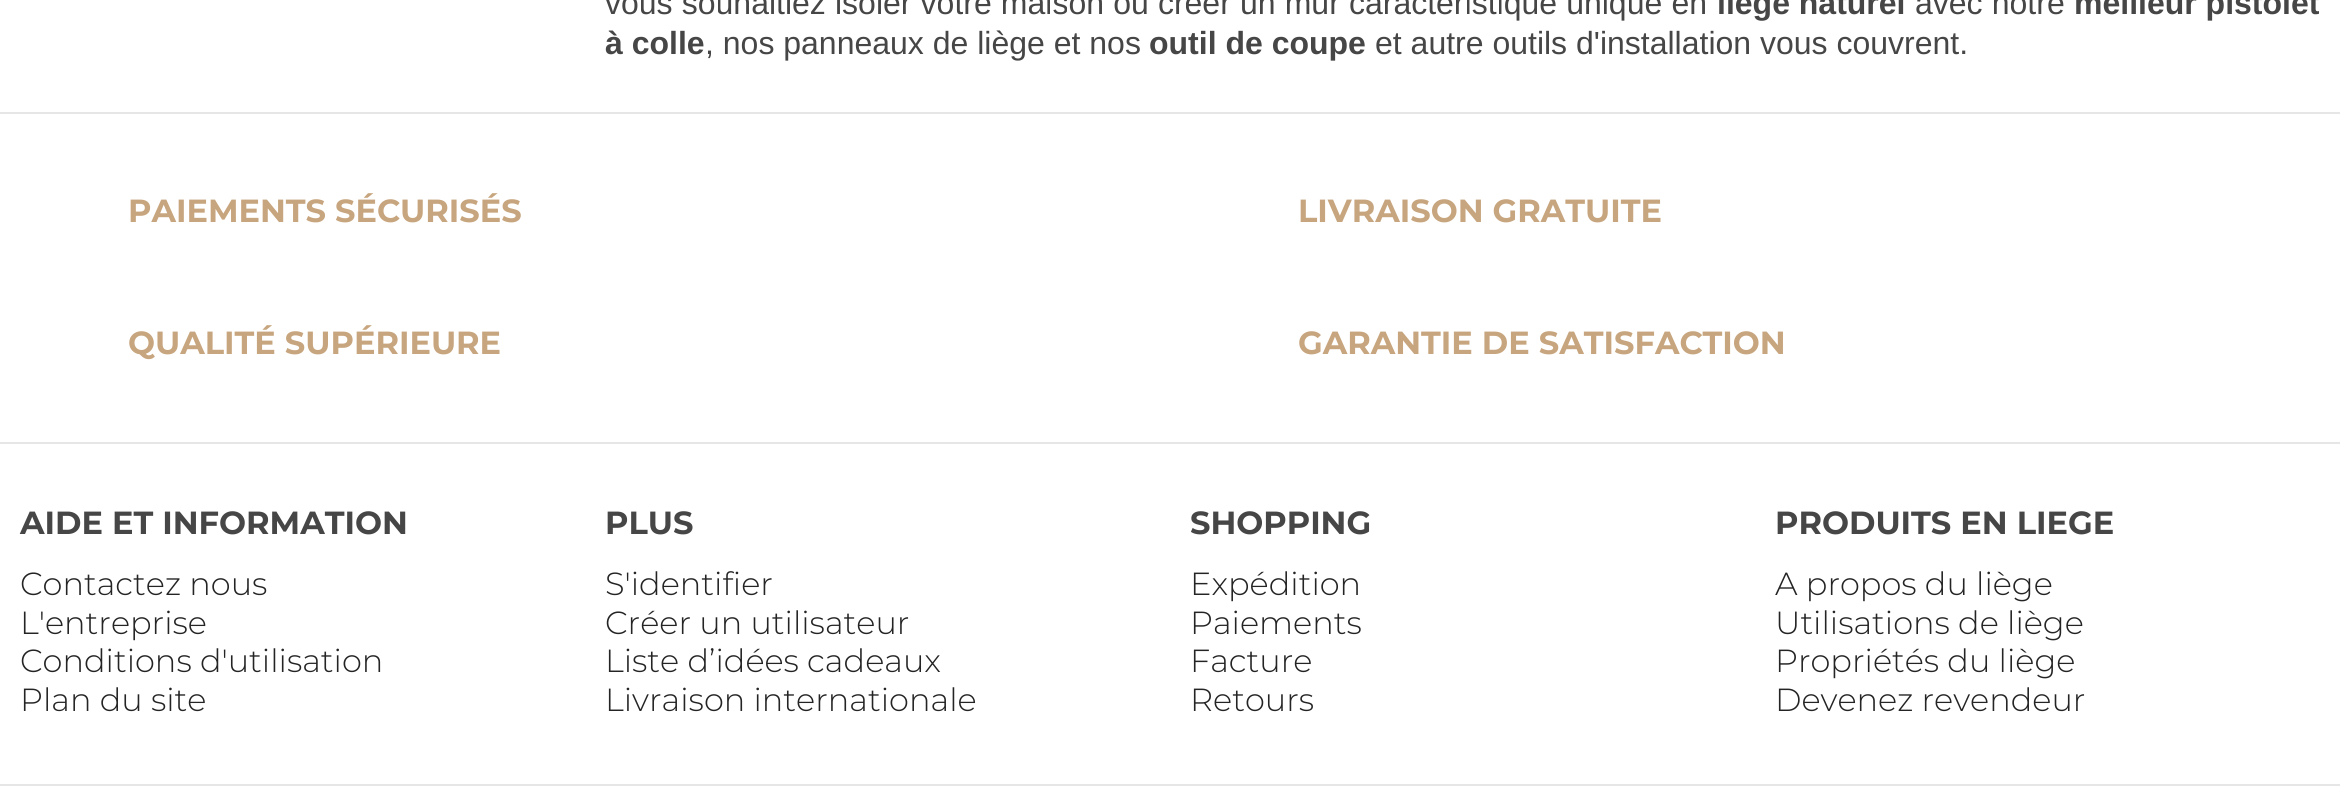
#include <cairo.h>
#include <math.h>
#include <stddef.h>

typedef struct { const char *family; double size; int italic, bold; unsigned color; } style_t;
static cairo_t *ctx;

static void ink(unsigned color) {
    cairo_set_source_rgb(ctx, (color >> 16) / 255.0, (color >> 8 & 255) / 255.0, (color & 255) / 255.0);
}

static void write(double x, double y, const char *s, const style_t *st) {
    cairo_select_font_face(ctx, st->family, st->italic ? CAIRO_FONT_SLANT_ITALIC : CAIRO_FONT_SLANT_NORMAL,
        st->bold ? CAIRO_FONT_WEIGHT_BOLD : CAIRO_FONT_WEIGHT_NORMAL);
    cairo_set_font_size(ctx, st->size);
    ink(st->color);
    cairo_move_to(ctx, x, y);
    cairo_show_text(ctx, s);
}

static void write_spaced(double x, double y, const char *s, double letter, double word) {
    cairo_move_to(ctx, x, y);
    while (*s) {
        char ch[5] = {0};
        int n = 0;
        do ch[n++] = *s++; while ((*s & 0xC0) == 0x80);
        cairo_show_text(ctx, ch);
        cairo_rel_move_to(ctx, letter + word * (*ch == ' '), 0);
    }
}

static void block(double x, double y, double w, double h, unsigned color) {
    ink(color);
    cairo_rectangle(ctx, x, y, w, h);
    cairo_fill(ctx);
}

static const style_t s1 = {"Liberation Sans", 32, 0, 1, 0x464646};
static const style_t s2 = {"Liberation Sans", 32, 0, 0, 0x464646};
static const style_t s3 = {"Montserrat", 32, 0, 1, 0xc7a57e};
static const style_t s4 = {"Montserrat", 32, 0, 1, 0x464646};
static const style_t s5 = {"Montserrat Light", 32, 0, 0, 0x242424};

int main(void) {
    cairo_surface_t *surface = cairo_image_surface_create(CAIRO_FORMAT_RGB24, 2340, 786);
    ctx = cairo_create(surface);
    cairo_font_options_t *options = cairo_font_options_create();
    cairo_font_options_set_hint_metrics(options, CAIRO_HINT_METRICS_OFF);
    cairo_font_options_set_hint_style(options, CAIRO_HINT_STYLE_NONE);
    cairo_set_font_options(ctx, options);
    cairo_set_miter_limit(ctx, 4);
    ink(0xffffff);
    cairo_paint(ctx);
    cairo_select_font_face(ctx, "Liberation Sans", CAIRO_FONT_SLANT_NORMAL, CAIRO_FONT_WEIGHT_NORMAL);
    cairo_set_font_size(ctx, 32);
    ink(0x464646);
    write_spaced(605, 14, "vous souhaitiez isoler votre maison ou créer un mur caractéristique unique en", 0, 0.25);
    write(1717, 14, "liège naturel", &s1);
    cairo_select_font_face(ctx, "Liberation Sans", CAIRO_FONT_SLANT_NORMAL, CAIRO_FONT_WEIGHT_NORMAL);
    write_spaced(1915, 14, "avec notre", 0, 0.25);
    write(2074, 14, "meilleur pistolet", &s1);
    write(605, 54, "à colle", &s1);
    write(705, 54, ", nos panneaux de liège et nos", &s2);
    write(1149, 54, "outil de coupe", &s1);
    write(1375, 54, "et autre outils d'installation vous couvrent.", &s2);
    block(0, 112, 2340, 2, 0xe6e6e6);
    write(128, 222, "PAIEMENTS SÉCURISÉS", &s3);
    write(1298, 222, "LIVRAISON GRATUITE", &s3);
    write(128, 354, "QUALITÉ SUPÉRIEURE", &s3);
    write(1298, 354, "GARANTIE DE SATISFACTION", &s3);
    block(0, 442, 2340, 2, 0xe6e6e6);
    block(0, 784, 2340, 2, 0xe6e6e6);
    write(20, 534, "AIDE ET INFORMATION", &s4);
    write(20, 595, "Contactez nous", &s5);
    write(20, 634, "L'entreprise", &s5);
    write(20, 672, "Conditions d'utilisation", &s5);
    write(20, 711, "Plan du site", &s5);
    write(605, 534, "PLUS", &s4);
    write(605, 595, "S'identifier", &s5);
    write(605, 634, "Créer un utilisateur", &s5);
    write(605, 672, "Liste d’idées cadeaux", &s5);
    write(605, 711, "Livraison internationale", &s5);
    write(1190, 534, "SHOPPING", &s4);
    write(1190, 595, "Expédition", &s5);
    write(1190, 634, "Paiements", &s5);
    write(1190, 672, "Facture", &s5);
    write(1190, 711, "Retours", &s5);
    write(1775, 534, "PRODUITS EN LIEGE", &s4);
    write(1775, 595, "A propos du liège", &s5);
    write(1775, 634, "Utilisations de liège", &s5);
    write(1775, 672, "Propriétés du liège", &s5);
    write(1775, 711, "Devenez revendeur", &s5);
    cairo_surface_write_to_png(surface, "screenshot.png");
    cairo_font_options_destroy(options);
    cairo_destroy(ctx);
    cairo_surface_destroy(surface);
    return 0;
}
